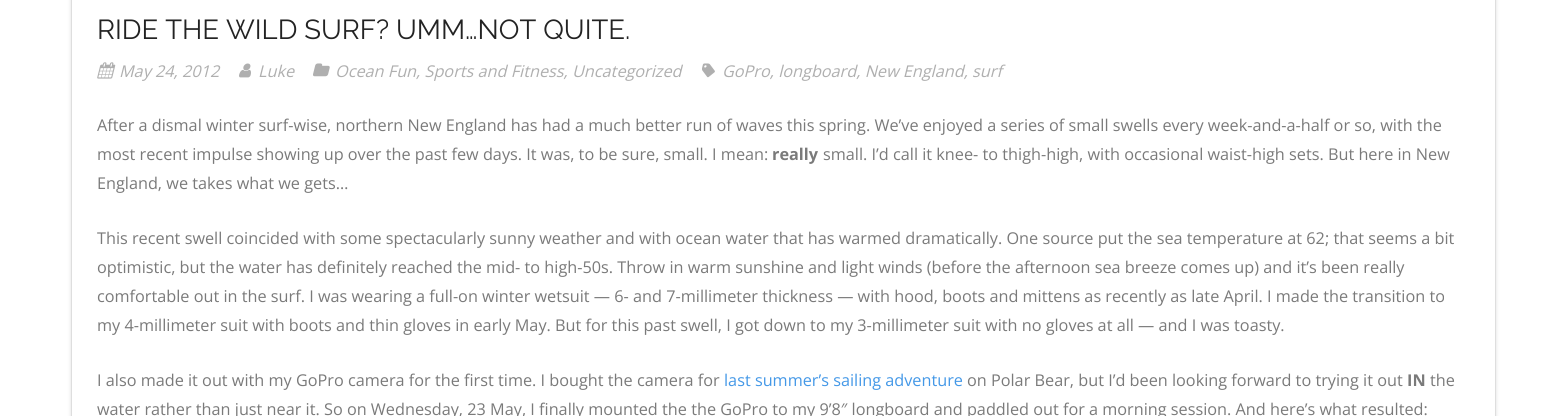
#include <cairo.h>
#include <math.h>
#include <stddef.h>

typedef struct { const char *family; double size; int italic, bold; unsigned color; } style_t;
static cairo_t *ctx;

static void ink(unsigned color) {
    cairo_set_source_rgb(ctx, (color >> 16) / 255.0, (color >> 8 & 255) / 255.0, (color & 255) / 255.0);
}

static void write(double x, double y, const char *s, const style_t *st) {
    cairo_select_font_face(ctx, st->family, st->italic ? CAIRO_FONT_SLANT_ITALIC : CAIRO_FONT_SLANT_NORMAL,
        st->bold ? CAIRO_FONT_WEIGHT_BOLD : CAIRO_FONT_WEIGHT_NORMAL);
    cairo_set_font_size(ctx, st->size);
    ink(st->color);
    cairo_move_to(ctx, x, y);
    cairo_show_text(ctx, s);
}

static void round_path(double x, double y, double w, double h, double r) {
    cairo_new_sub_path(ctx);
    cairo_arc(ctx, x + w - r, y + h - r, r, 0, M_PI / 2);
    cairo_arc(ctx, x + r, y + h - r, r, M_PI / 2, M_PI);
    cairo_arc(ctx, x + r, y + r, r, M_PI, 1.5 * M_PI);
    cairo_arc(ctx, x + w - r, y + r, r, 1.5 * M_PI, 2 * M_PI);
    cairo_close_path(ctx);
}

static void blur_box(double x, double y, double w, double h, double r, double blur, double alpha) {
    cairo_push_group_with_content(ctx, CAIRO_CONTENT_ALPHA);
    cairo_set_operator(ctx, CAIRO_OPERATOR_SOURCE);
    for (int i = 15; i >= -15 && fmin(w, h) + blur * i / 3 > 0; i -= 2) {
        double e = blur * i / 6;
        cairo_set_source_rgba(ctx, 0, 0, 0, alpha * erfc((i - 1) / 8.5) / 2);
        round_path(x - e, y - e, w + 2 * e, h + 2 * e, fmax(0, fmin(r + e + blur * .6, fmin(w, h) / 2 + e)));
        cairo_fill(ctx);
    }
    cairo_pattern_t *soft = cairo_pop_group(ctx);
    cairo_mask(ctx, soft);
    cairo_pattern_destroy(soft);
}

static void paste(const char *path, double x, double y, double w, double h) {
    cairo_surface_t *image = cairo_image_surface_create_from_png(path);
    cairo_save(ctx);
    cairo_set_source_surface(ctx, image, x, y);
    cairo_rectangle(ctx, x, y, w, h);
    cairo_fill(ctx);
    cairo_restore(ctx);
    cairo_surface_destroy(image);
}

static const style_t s1 = {"Raleway", 27.5, 0, 0, 0x232323};
static const style_t s2 = {"Open Sans", 16.25, 1, 0, 0xafafaf};
static const style_t s3 = {"Open Sans", 16.25, 0, 0, 0x7a7a7a};
static const style_t s4 = {"Open Sans", 16.25, 0, 1, 0x7a7a7a};
static const style_t s5 = {"Open Sans", 16.25, 0, 0, 0x4498e7};

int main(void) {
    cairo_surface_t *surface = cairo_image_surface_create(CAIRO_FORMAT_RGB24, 1566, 416);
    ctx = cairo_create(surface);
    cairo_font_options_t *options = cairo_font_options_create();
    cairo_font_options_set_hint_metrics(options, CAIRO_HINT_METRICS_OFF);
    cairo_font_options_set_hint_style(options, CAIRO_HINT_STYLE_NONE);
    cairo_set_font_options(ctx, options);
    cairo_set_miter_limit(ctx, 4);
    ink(0xffffff);
    cairo_paint(ctx);
    cairo_save(ctx);
    cairo_set_fill_rule(ctx, CAIRO_FILL_RULE_EVEN_ODD);
    cairo_new_path(ctx);
    cairo_move_to(ctx, 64, 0);
    cairo_line_to(ctx, 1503, 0);
    cairo_line_to(ctx, 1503, 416);
    cairo_line_to(ctx, 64, 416);
    cairo_close_path(ctx);
    cairo_move_to(ctx, 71, -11);
    cairo_line_to(ctx, 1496, -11);
    cairo_line_to(ctx, 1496, 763);
    cairo_line_to(ctx, 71, 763);
    cairo_close_path(ctx);
    cairo_clip(ctx);
    ink(0x232323);
    blur_box(71, -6, 1425, 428, 0, 2, 0.15);
    cairo_restore(ctx);
    cairo_rectangle(ctx, 71.5, -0.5, 1424, 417);
    cairo_set_source_rgba(ctx, 0.137, 0.137, 0.137, 0.15);
    cairo_set_line_width(ctx, 1);
    cairo_stroke(ctx);
    write(97, 39, "RIDE THE WILD SURF? UMM…NOT QUITE.", &s1);
    paste("pic1.png", 97, 62, 19, 17);
    write(119, 77, "May 24, 2012", &s2);
    paste("pic2.png", 239, 63, 12, 15);
    write(258, 77, "Luke", &s2);
    paste("pic3.png", 313, 63, 17, 14);
    write(335, 77, "Ocean Fun, Sports and Fitness, Uncategorized", &s2);
    paste("pic4.png", 702, 63, 13, 15);
    write(722, 77, "GoPro, longboard, New England, surf", &s2);
    write(97, 131, "After a dismal winter surf-wise, northern New England has had a much better run of waves this spring. We’ve enjoyed a series of small swells every week-and-a-half or so, with the", &s3);
    write(97, 160, "most recent impulse showing up over the past few days. It was, to be sure, small. I mean:", &s3);
    write(772, 160, "really", &s4);
    write(823, 160, "small. I’d call it knee- to thigh-high, with occasional waist-high sets. But here in New", &s3);
    write(97, 189, "England, we takes what we gets…", &s3);
    write(97, 244, "This recent swell coincided with some spectacularly sunny weather and with ocean water that has warmed dramatically. One source put the sea temperature at 62; that seems a bit", &s3);
    write(97, 273, "optimistic, but the water has definitely reached the mid- to high-50s. Throw in warm sunshine and light winds (before the afternoon sea breeze comes up) and it’s been really", &s3);
    write(97, 302, "comfortable out in the surf. I was wearing a full-on winter wetsuit — 6- and 7-millimeter thickness — with hood, boots and mittens as recently as late April. I made the transition to", &s3);
    write(97, 331, "my 4-millimeter suit with boots and thin gloves in early May. But for this past swell, I got down to my 3-millimeter suit with no gloves at all — and I was toasty.", &s3);
    write(97, 386, "I also made it out with my GoPro camera for the first time. I bought the camera for", &s3);
    write(724, 386, "last summer’s sailing adventure", &s5);
    write(967, 386, "on Polar Bear, but I’d been looking forward to trying it out", &s3);
    write(1407, 386, "IN", &s4);
    write(1430, 386, "the", &s3);
    write(97, 415, "water rather than just near it. So on Wednesday, 23 May, I finally mounted the the GoPro to my 9’8″ longboard and paddled out for a morning session. And here’s what resulted:", &s3);
    cairo_surface_write_to_png(surface, "screenshot.png");
    cairo_font_options_destroy(options);
    cairo_destroy(ctx);
    cairo_surface_destroy(surface);
    return 0;
}
